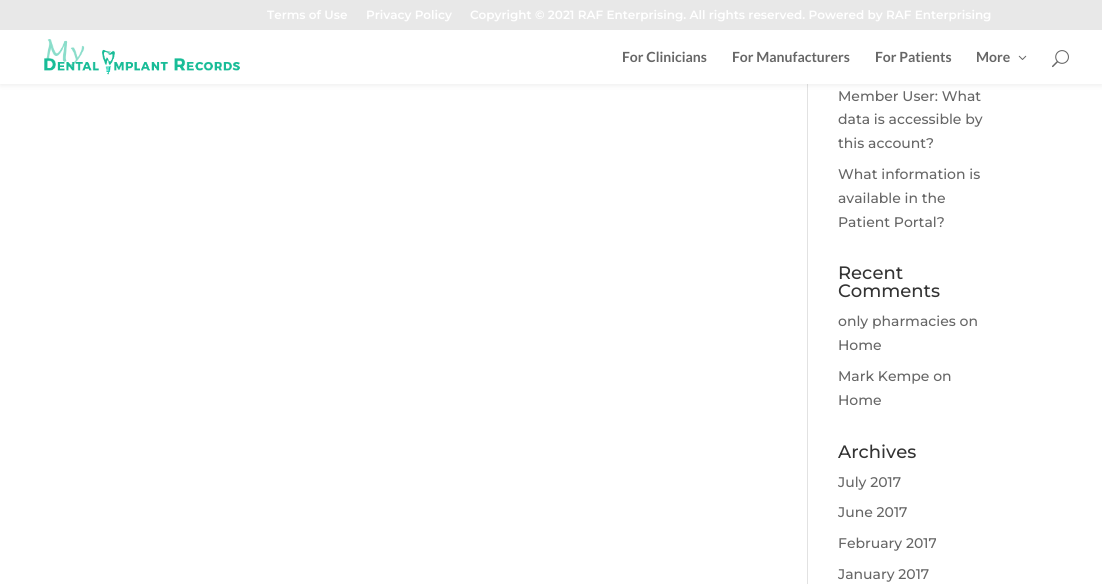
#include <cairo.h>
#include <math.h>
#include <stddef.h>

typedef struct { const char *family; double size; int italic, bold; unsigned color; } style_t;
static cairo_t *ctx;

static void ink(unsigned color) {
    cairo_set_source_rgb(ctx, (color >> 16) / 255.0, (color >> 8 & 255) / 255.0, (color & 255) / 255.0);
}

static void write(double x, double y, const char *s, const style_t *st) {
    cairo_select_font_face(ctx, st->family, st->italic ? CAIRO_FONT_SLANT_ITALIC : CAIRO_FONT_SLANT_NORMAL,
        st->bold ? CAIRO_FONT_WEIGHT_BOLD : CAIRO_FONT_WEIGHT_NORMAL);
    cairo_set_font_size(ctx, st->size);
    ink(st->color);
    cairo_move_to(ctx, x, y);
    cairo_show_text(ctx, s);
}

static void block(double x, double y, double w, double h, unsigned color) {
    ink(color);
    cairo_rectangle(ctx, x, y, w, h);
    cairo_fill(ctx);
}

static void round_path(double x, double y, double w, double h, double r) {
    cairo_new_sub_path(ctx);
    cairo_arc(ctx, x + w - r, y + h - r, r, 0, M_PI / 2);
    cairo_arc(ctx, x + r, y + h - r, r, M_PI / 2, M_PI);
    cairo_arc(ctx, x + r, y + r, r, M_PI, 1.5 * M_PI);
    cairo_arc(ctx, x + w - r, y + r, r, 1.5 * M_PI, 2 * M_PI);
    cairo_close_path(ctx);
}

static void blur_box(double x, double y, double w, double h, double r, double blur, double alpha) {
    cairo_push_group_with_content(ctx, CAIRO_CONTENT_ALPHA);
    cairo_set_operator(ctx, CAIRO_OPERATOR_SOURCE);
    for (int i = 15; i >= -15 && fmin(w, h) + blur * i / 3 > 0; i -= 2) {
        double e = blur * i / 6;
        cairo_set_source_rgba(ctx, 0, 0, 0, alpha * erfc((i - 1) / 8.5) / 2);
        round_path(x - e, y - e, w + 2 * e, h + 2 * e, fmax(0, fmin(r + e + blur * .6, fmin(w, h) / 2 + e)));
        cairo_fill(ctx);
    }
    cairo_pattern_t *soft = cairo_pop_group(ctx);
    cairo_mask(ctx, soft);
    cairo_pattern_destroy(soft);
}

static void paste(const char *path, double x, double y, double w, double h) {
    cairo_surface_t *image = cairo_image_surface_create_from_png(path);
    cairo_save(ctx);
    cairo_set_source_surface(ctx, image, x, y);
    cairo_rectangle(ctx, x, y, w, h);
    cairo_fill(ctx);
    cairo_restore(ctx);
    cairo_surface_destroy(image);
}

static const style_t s1 = {"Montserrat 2 Thin", 12, 0, 0, 0xffffff};
static const style_t s2 = {"Lato", 14, 0, 1, 0x666666};
static const style_t s3 = {"Montserrat Thin", 14, 0, 0, 0x666666};
static const style_t s4 = {"Montserrat Thin", 18, 0, 0, 0x333333};

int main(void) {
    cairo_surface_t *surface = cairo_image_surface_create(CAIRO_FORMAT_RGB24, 1102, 584);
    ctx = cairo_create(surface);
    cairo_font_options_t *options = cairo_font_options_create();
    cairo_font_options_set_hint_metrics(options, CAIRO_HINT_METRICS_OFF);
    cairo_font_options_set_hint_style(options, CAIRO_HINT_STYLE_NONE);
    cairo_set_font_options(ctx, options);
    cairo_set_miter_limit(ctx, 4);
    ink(0xffffff);
    cairo_paint(ctx);
    block(807, 84, 1, 500, 0xe2e2e2);
    ink(0x000000);
    blur_box(0, 30, 1102, 54, 0, 3.5, 0.1);
    block(0, 0, 1102, 30, 0xe8e8e8);
    write(267, 19, "Terms of Use", &s1);
    write(366, 19, "Privacy Policy", &s1);
    write(470, 19, "Copyright © 2021 RAF Enterprising. All rights reserved. Powered by RAF Enterprising", &s1);
    block(0, 30, 1102, 54, 0xffffff);
    paste("pic1.png", 44, 39, 196, 36);
    write(622, 62, "For Clinicians", &s2);
    write(732, 62, "For Manufacturers", &s2);
    write(875, 62, "For Patients", &s2);
    write(976, 62, "More", &s2);
    paste("pic2.png", 1018, 55, 9, 5);
    paste("pic3.png", 1052, 50, 17, 18);
    write(838, 101, "Member User: What", &s3);
    write(838, 124, "data is accessible by", &s3);
    write(838, 148, "this account?", &s3);
    write(838, 179, "What information is", &s3);
    write(838, 203, "available in the", &s3);
    write(838, 227, "Patient Portal?", &s3);
    write(838, 279, "Recent", &s4);
    write(838, 297, "Comments", &s4);
    write(838, 326, "only pharmacies on", &s3);
    write(838, 350, "Home", &s3);
    write(838, 381, "Mark Kempe on", &s3);
    write(838, 405, "Home", &s3);
    write(838, 458, "Archives", &s4);
    write(838, 487, "July 2017", &s3);
    write(838, 517, "June 2017", &s3);
    write(838, 548, "February 2017", &s3);
    write(838, 579, "January 2017", &s3);
    cairo_surface_write_to_png(surface, "screenshot.png");
    cairo_font_options_destroy(options);
    cairo_destroy(ctx);
    cairo_surface_destroy(surface);
    return 0;
}
